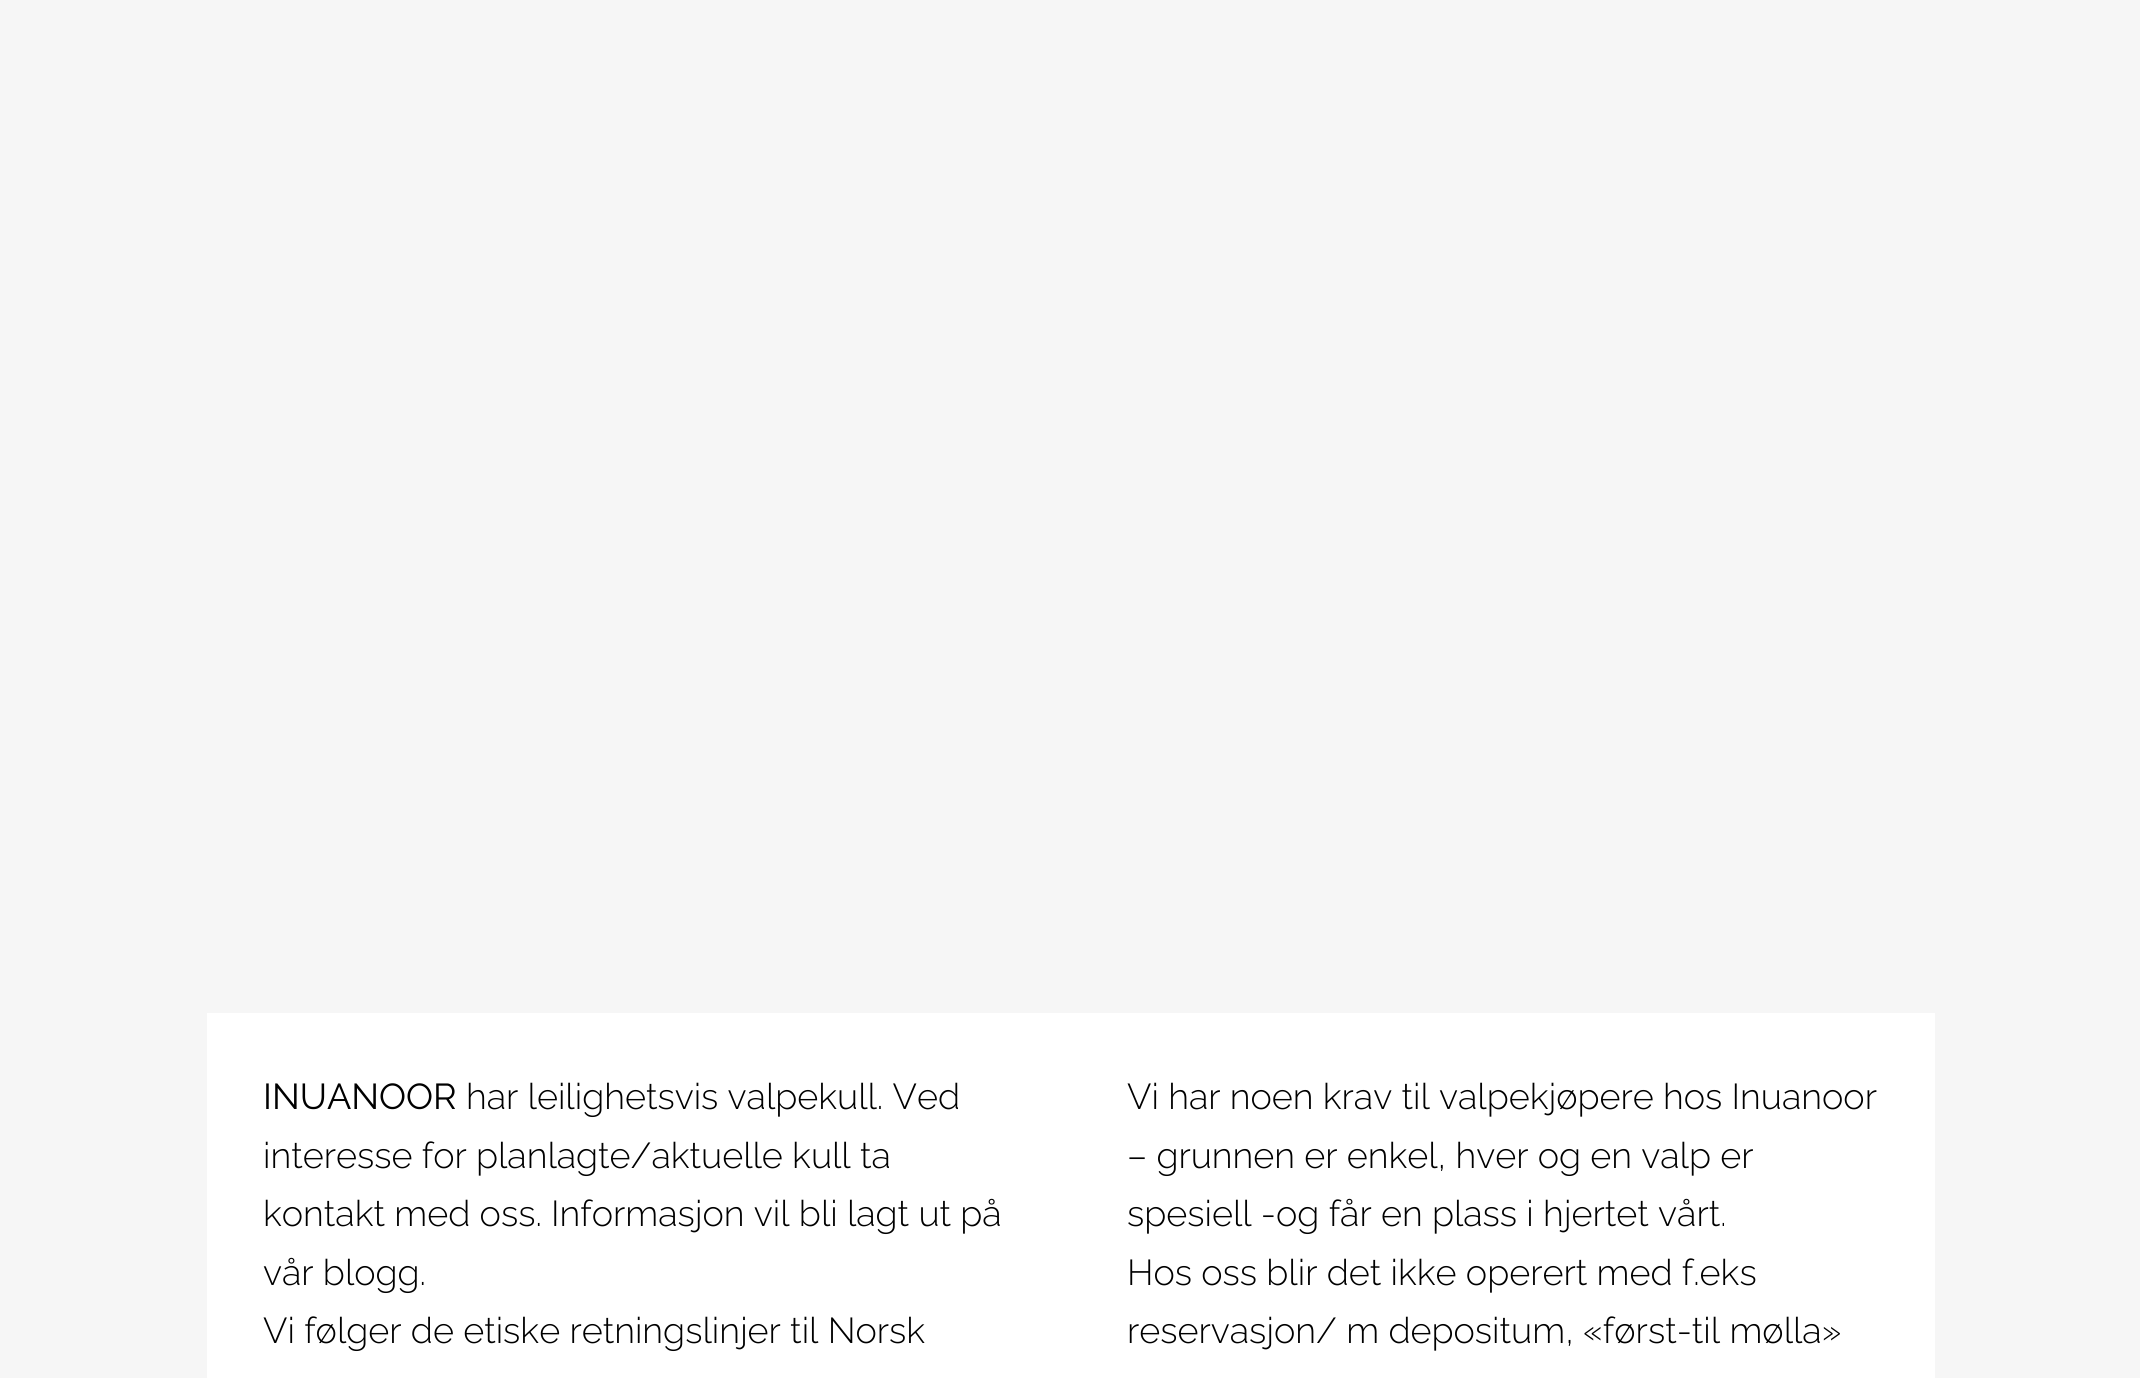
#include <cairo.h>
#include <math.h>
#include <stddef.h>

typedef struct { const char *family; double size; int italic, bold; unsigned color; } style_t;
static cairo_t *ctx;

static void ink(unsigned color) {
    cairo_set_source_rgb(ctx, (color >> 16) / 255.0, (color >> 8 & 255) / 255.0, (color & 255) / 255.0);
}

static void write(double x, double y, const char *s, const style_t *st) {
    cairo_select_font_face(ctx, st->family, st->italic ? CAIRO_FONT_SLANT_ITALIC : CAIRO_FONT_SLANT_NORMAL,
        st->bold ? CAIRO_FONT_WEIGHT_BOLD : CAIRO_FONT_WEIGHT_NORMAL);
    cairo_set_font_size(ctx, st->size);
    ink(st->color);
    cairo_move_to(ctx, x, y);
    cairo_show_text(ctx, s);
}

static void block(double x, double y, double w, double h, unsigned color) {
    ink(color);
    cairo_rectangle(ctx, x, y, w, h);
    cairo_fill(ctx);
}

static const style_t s1 = {"Raleway", 36, 0, 0, 0x000000};
static const style_t s2 = {"Raleway Light", 36, 0, 0, 0x000000};

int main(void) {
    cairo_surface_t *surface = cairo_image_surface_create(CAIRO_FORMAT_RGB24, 2140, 1378);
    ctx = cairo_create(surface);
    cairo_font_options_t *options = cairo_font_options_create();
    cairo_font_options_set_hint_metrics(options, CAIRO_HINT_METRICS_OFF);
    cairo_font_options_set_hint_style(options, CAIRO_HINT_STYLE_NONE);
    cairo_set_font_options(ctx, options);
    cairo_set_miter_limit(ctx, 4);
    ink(0xf6f6f6);
    cairo_paint(ctx);
    block(207, 1013, 1728, 365, 0xffffff);
    write(263, 1109, "INUANOOR", &s1);
    write(466, 1109, "har leilighetsvis valpekull. Ved", &s2);
    write(263, 1168, "interesse for planlagte/aktuelle kull ta", &s2);
    write(263, 1226, "kontakt med oss. Informasjon vil bli lagt ut på", &s2);
    write(263, 1285, "vår blogg.", &s2);
    write(263, 1343, "Vi følger de etiske retningslinjer til Norsk", &s2);
    write(1127, 1109, "Vi har noen krav til valpekjøpere hos Inuanoor", &s2);
    write(1127, 1168, "– grunnen er enkel, hver og en valp er", &s2);
    write(1127, 1226, "spesiell -og får en plass i hjertet vårt.", &s2);
    write(1127, 1285, "Hos oss blir det ikke operert med f.eks", &s2);
    write(1127, 1343, "reservasjon/ m depositum, «først-til mølla»", &s2);
    cairo_surface_write_to_png(surface, "screenshot.png");
    cairo_font_options_destroy(options);
    cairo_destroy(ctx);
    cairo_surface_destroy(surface);
    return 0;
}
